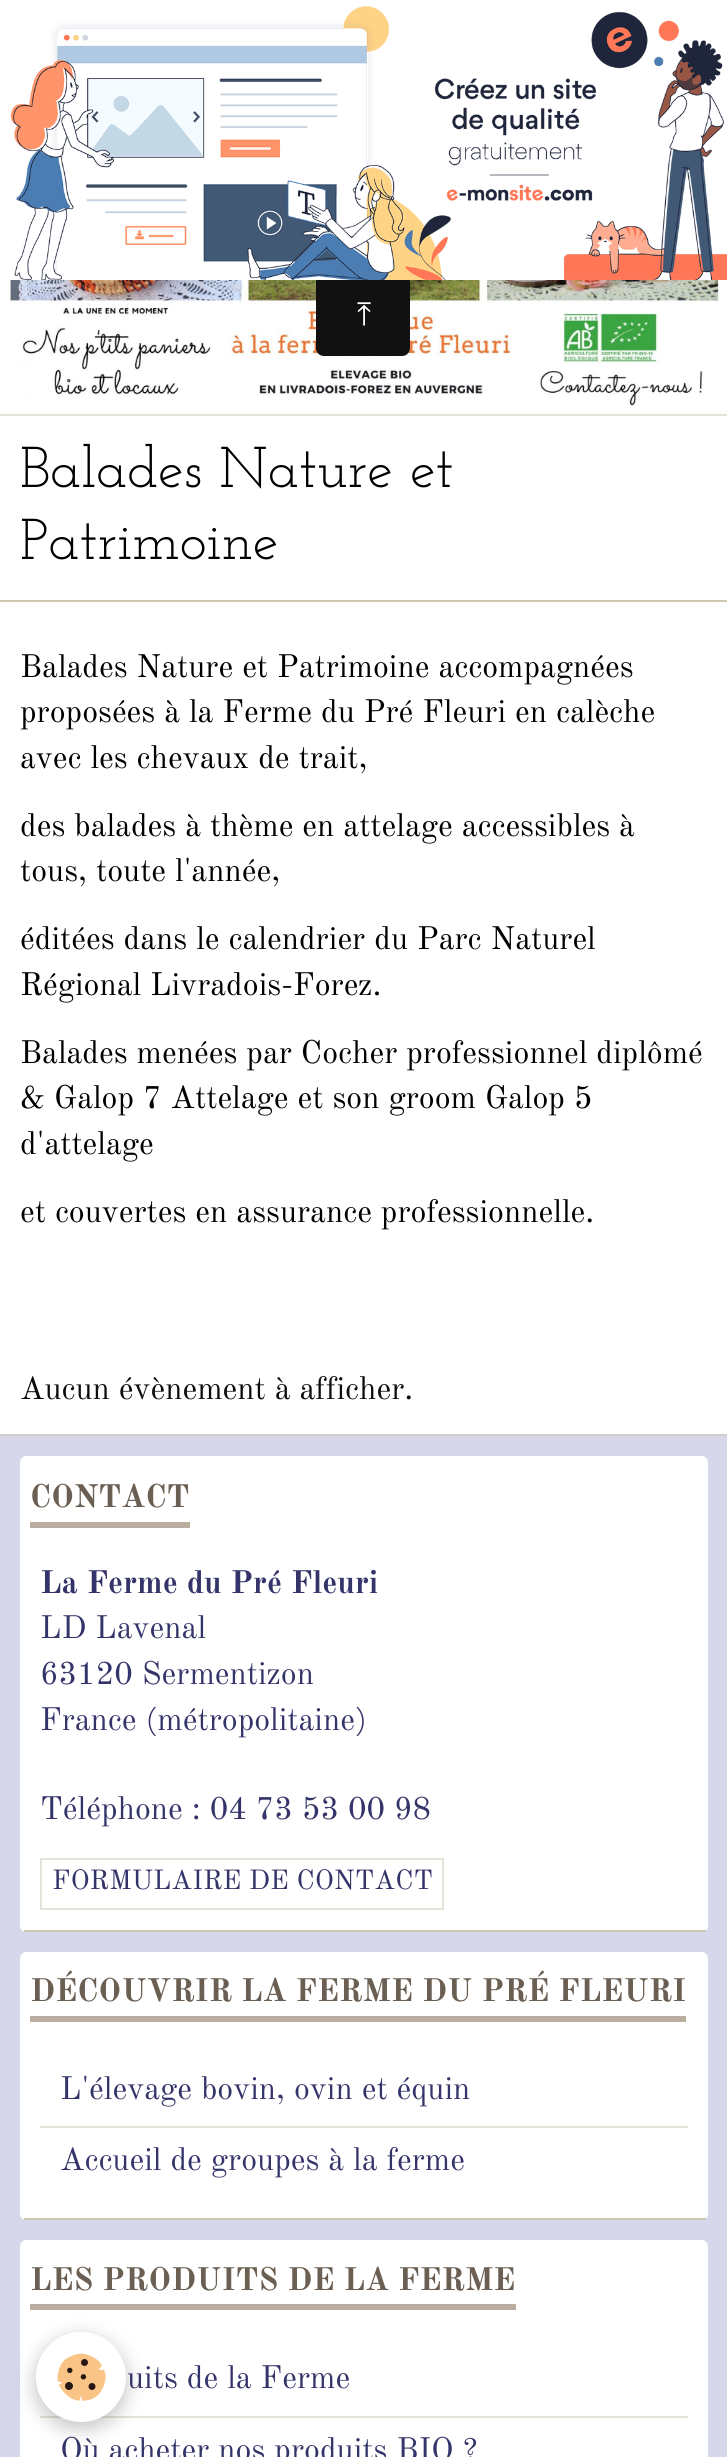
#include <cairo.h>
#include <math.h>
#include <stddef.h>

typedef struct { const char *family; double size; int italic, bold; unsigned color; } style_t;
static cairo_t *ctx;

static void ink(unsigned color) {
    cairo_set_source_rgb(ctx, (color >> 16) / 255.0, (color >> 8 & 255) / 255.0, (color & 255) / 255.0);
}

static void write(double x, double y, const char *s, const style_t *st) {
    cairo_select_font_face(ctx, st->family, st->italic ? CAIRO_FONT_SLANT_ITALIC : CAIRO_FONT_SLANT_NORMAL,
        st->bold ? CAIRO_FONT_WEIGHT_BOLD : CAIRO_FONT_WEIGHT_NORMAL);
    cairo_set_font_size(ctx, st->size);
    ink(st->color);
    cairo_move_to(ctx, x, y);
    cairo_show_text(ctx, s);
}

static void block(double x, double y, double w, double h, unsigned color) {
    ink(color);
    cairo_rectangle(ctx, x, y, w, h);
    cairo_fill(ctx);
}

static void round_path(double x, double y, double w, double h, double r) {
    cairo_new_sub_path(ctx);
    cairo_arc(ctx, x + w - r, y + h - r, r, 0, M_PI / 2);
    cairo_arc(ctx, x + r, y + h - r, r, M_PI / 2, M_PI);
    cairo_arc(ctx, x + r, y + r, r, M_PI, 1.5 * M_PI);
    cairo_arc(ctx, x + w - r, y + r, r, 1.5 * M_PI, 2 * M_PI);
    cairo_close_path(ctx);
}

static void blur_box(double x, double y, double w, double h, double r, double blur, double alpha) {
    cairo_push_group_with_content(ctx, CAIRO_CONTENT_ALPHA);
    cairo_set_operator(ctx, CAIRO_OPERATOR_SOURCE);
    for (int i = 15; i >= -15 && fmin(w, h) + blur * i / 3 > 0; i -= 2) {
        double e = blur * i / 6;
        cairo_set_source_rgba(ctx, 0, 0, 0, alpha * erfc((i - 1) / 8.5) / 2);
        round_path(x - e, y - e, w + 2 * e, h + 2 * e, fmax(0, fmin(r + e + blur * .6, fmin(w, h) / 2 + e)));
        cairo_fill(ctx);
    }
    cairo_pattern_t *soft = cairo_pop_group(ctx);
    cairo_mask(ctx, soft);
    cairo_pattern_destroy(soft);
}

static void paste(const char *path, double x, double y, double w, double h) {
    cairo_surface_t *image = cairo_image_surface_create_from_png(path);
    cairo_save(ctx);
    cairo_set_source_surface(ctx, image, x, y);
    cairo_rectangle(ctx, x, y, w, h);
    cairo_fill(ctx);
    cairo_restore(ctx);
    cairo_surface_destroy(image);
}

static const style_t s1 = {"FreeSerif", 32, 0, 0, 0xffffff};
static const style_t s2 = {"Josefin Slab", 57.5, 0, 0, 0x000000};
static const style_t s3 = {"Old Standard TT", 32, 0, 0, 0x000000};
static const style_t s4 = {"Old Standard TT", 32, 0, 0, 0x0e0d0d};
static const style_t s5 = {"Old Standard TT", 32, 0, 1, 0x6b5f53};
static const style_t s6 = {"Old Standard TT", 32, 0, 1, 0x34346b};
static const style_t s7 = {"Old Standard TT", 32, 0, 0, 0x34346b};
static const style_t s8 = {"Old Standard TT", 27.25, 0, 0, 0x34346b};

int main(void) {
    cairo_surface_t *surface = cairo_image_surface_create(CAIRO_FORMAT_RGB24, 727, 2457);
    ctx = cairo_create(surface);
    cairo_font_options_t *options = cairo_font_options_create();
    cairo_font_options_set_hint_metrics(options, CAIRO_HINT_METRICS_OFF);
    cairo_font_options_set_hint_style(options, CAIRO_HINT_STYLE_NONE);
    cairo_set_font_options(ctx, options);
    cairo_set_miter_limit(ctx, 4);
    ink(0xffffff);
    cairo_paint(ctx);
    block(0, 414, 727, 2, 0xe6e4d8);
    paste("pic1.png", 6, 280, 716, 126);
    paste("pic2.png", 10, 6, 717, 274);
    ink(0x111111);
    cairo_new_path(ctx);
    cairo_move_to(ctx, 316, 280);
    cairo_line_to(ctx, 410, 280);
    cairo_line_to(ctx, 410, 348);
    cairo_curve_to(ctx, 410, 352.5, 406.5, 356, 402, 356);
    cairo_line_to(ctx, 324, 356);
    cairo_curve_to(ctx, 319.5, 356, 316, 352.5, 316, 348);
    cairo_close_path(ctx);
    cairo_fill(ctx);
    write(357, 325, "⤒", &s1);
    block(0, 600, 727, 2, 0xcdc8b1);
    write(20, 487, "Balades Nature et", &s2);
    write(20, 559, "Patrimoine", &s2);
    write(20, 677, "Balades Nature et Patrimoine accompagnées", &s3);
    write(20, 722, "proposées à la Ferme du Pré Fleuri en calèche", &s3);
    write(20, 768, "avec les chevaux de trait,", &s3);
    write(20, 836, "des balades à thème en attelage accessibles à", &s3);
    write(20, 881, "tous, toute l'année,", &s3);
    write(20, 949, "éditées dans le calendrier du Parc Naturel", &s3);
    write(20, 995, "Régional Livradois-Forez.", &s3);
    write(20, 1063, "Balades menées par Cocher professionnel diplômé", &s3);
    write(20, 1108, "& Galop 7 Attelage et son groom Galop 5", &s3);
    write(20, 1154, "d'attelage", &s3);
    write(20, 1222, "et couvertes en assurance professionnelle.", &s3);
    write(20, 1399, "Aucun évènement à afficher.", &s4);
    block(0, 1436, 727, 1021, 0xd7d7eb);
    block(0, 1434, 727, 2, 0xd2d0ce);
    ink(0xffffff);
    round_path(20, 1456, 688, 476, 6);
    cairo_fill(ctx);
    block(24, 1930, 682, 2, 0xcdc8b1);
    write(30, 1507, "CONTACT", &s5);
    block(30, 1522, 160, 6, 0xbaada0);
    write(40, 1593, "La Ferme du Pré Fleuri", &s6);
    write(40, 1638, "LD Lavenal", &s7);
    write(40, 1684, "63120 Sermentizon", &s7);
    write(40, 1730, "France (métropolitaine)", &s7);
    write(40, 1819, "Téléphone : 04 73 53 00 98", &s7);
    cairo_rectangle(ctx, 41, 1859, 402, 50);
    ink(0xe6e4d8);
    cairo_stroke(ctx);
    write(52, 1889, "FORMULAIRE DE CONTACT", &s8);
    ink(0xffffff);
    round_path(20, 1952, 688, 268, 6);
    cairo_fill(ctx);
    block(24, 2218, 682, 2, 0xcdc8b1);
    write(30, 2001, "DÉCOUVRIR LA FERME DU PRÉ FLEURI", &s5);
    block(30, 2016, 656, 6, 0xbaada0);
    block(40, 2126, 648, 2, 0xe6e4d8);
    write(60, 2099, "L'élevage bovin, ovin et équin", &s7);
    write(60, 2170, "Accueil de groupes à la ferme", &s7);
    ink(0xffffff);
    round_path(20, 2240, 688, 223, 6);
    cairo_fill(ctx);
    write(30, 2290, "LES PRODUITS DE LA FERME", &s5);
    block(30, 2304, 486, 6, 0xbaada0);
    block(40, 2416, 648, 2, 0xe6e4d8);
    write(127, 2388, "uits de la Ferme", &s7);
    write(60, 2460, "Où acheter nos produits BIO ?", &s7);
    ink(0x000000);
    blur_box(36, 2338, 90, 90, 45, 10, 0.24);
    ink(0xffffff);
    cairo_arc(ctx, 81, 2377, 45, 0, 2 * M_PI);
    cairo_fill(ctx);
    paste("pic3.png", 57, 2353, 49, 48);
    cairo_surface_write_to_png(surface, "screenshot.png");
    cairo_font_options_destroy(options);
    cairo_destroy(ctx);
    cairo_surface_destroy(surface);
    return 0;
}
